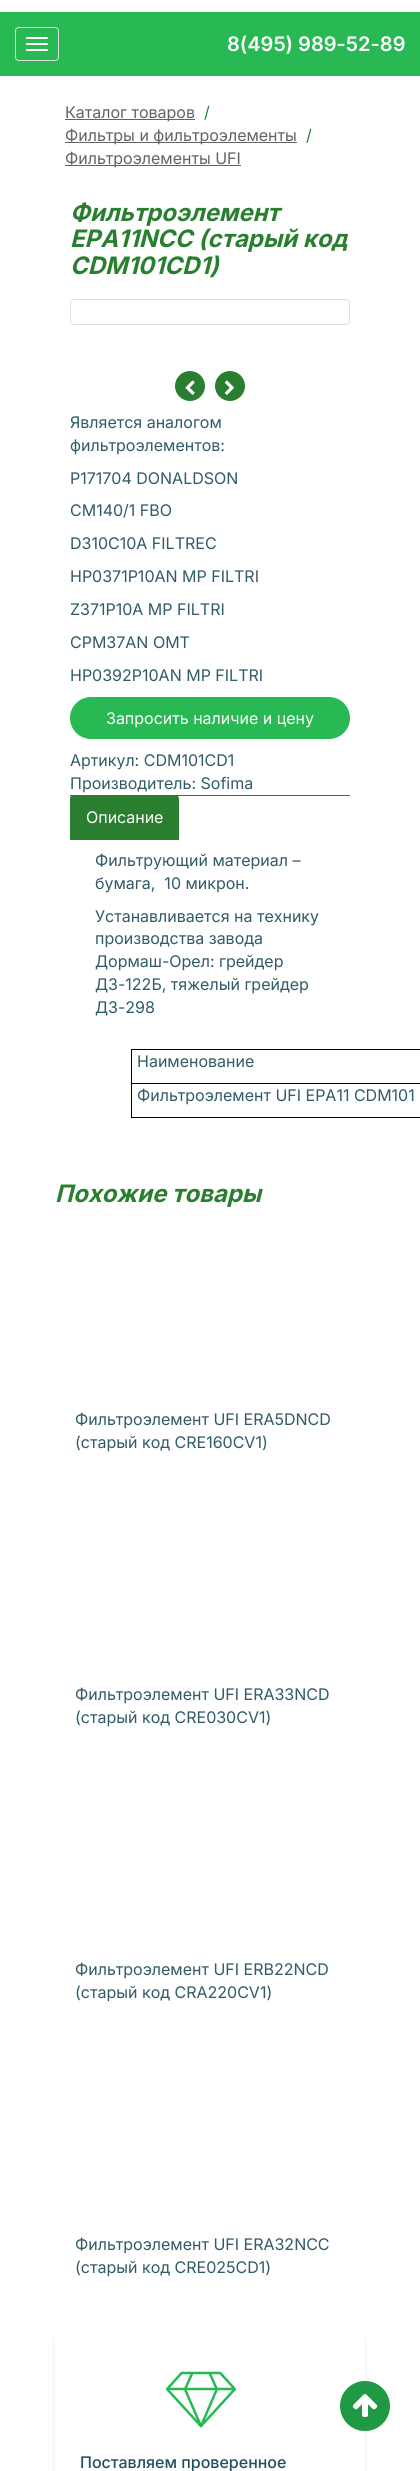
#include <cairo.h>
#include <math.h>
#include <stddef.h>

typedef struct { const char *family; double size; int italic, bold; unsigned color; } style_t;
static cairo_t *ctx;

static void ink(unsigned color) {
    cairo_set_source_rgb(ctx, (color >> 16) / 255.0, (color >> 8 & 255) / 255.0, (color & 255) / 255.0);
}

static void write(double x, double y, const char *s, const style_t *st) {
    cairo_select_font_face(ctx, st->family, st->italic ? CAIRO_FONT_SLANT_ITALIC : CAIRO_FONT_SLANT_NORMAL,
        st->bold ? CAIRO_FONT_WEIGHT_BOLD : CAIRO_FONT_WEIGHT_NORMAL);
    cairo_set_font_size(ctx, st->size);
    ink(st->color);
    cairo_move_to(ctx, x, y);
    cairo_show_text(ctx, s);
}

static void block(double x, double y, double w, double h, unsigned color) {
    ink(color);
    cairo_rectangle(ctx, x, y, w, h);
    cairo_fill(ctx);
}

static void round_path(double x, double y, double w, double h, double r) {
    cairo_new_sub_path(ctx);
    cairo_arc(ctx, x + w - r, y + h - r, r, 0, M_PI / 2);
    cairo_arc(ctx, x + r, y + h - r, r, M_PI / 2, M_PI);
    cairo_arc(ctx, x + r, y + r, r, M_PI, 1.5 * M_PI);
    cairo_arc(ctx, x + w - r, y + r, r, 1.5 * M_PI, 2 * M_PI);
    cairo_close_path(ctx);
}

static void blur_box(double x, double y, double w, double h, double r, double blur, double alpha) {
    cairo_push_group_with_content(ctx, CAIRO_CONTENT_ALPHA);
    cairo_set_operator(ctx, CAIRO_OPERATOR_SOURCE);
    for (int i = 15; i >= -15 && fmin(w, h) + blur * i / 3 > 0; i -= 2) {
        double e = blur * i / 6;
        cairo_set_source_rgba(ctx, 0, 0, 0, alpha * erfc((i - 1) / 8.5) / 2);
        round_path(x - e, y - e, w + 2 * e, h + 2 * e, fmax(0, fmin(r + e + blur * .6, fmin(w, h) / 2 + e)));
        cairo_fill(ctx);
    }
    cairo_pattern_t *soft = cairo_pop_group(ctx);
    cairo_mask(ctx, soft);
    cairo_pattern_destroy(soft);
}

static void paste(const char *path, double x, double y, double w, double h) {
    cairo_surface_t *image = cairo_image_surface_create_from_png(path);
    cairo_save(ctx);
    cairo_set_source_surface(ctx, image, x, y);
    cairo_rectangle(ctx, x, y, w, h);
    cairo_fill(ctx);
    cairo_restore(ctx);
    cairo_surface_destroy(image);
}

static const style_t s1 = {"Inter SemiBold", 20, 0, 0, 0xffffff};
static const style_t s2 = {"Inter", 16, 0, 0, 0x636363};
static const style_t s3 = {"Inter", 16, 0, 0, 0x297f2f};
static const style_t s4 = {"Inter", 24, 1, 1, 0x297f2f};
static const style_t s5 = {"Inter", 16, 0, 0, 0x315b66};
static const style_t s6 = {"Inter", 16, 0, 0, 0xffffff};
static const style_t s7 = {"Inter Medium", 16, 0, 0, 0x214f5b};

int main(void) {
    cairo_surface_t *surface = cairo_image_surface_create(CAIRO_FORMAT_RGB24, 420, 2471);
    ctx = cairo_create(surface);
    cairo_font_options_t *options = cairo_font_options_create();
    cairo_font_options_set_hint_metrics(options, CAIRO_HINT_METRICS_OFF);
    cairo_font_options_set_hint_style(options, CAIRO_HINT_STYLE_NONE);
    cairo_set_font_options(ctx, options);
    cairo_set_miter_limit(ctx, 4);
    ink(0xffffff);
    cairo_paint(ctx);
    block(0, 12, 420, 64, 0x28b954);
    round_path(15.5, 27.5, 43, 33, 3.5);
    ink(0xdddddd);
    cairo_set_line_width(ctx, 1);
    cairo_stroke(ctx);
    ink(0xffffff);
    round_path(26, 37, 22, 2, 1);
    cairo_fill(ctx);
    round_path(26, 43, 22, 2, 1);
    cairo_fill(ctx);
    round_path(26, 49, 22, 2, 1);
    cairo_fill(ctx);
    write(227, 51, "8(495) 989-52-89", &s1);
    block(65, 119, 130, 1, 0x636363);
    write(65, 118, "Каталог товаров", &s2);
    write(204, 118, "/", &s3);
    block(65, 142, 232, 1, 0x636363);
    write(65, 141, "Фильтры и фильтроэлементы", &s2);
    write(306, 141, "/", &s3);
    block(65, 165, 176, 1, 0x636363);
    write(65, 164, "Фильтроэлементы UFI", &s2);
    write(70, 221, "Фильтроэлемент", &s4);
    write(70, 247, "EPA11NCC (старый код", &s4);
    write(70, 274, "CDM101CD1)", &s4);
    round_path(70.5, 299.5, 279, 25, 3.5);
    ink(0xdddddd);
    cairo_stroke(ctx);
    ink(0x297f2f);
    cairo_arc(ctx, 190, 386, 15, 0, 2 * M_PI);
    cairo_fill(ctx);
    paste("pic1.png", 185, 380, 10, 15);
    cairo_arc(ctx, 230, 386, 15, 0, 2 * M_PI);
    cairo_fill(ctx);
    paste("pic2.png", 224, 380, 10, 15);
    write(70, 428, "Является аналогом", &s5);
    write(70, 451, "фильтроэлементов:", &s5);
    write(70, 484, "P171704 DONALDSON", &s5);
    write(70, 516, "CM140/1 FBO", &s5);
    write(70, 549, "D310C10A FILTREC", &s5);
    write(70, 582, "HP0371P10AN MP FILTRI", &s5);
    write(70, 615, "Z371P10A MP FILTRI", &s5);
    write(70, 648, "CPM37AN OMT", &s5);
    write(70, 681, "HP0392P10AN MP FILTRI", &s5);
    ink(0x28b954);
    round_path(70, 697, 280, 42, 21);
    cairo_fill(ctx);
    write(106, 724, "Запросить наличие и цену", &s6);
    write(70, 766, "Артикул: CDM101CD1", &s5);
    write(70, 789, "Производитель: Sofima", &s5);
    block(70, 795, 280, 1, 0x297f2f);
    cairo_new_path(ctx);
    cairo_move_to(ctx, 74, 795);
    cairo_line_to(ctx, 175, 795);
    cairo_curve_to(ctx, 177, 795, 179, 797, 179, 799);
    cairo_line_to(ctx, 179, 840);
    cairo_line_to(ctx, 70, 840);
    cairo_line_to(ctx, 70, 799);
    cairo_curve_to(ctx, 70, 797, 72, 795, 74, 795);
    cairo_close_path(ctx);
    cairo_fill(ctx);
    cairo_new_path(ctx);
    cairo_move_to(ctx, 74, 795);
    cairo_line_to(ctx, 71, 796);
    cairo_line_to(ctx, 72, 797);
    cairo_line_to(ctx, 74, 796);
    cairo_line_to(ctx, 175, 796);
    cairo_line_to(ctx, 177, 797);
    cairo_line_to(ctx, 178, 796);
    cairo_line_to(ctx, 175, 795);
    cairo_close_path(ctx);
    cairo_fill(ctx);
    cairo_new_path(ctx);
    cairo_move_to(ctx, 179, 840);
    cairo_line_to(ctx, 179, 799);
    cairo_curve_to(ctx, 179, 798, 178, 797, 178, 796);
    cairo_line_to(ctx, 177, 797);
    cairo_curve_to(ctx, 179, 799, 178, 834, 178, 839);
    cairo_close_path(ctx);
    cairo_fill(ctx);
    cairo_new_path(ctx);
    cairo_move_to(ctx, 70, 840);
    cairo_line_to(ctx, 71, 839);
    cairo_curve_to(ctx, 71, 834, 70, 799, 72, 797);
    cairo_line_to(ctx, 71, 796);
    cairo_line_to(ctx, 70, 799);
    cairo_close_path(ctx);
    cairo_fill(ctx);
    write(86, 823, "Описание", &s6);
    write(95, 866, "Фильтрующий материал –", &s5);
    write(95, 889, "бумага,  10 микрон.", &s5);
    write(95, 922, "Устанавливается на технику", &s5);
    write(95, 944, "производства завода", &s5);
    write(95, 967, "Дормаш-Орел: грейдер", &s5);
    write(95, 990, "ДЗ-122Б, тяжелый грейдер", &s5);
    write(95, 1013, "ДЗ-298", &s5);
    block(131, 1049, 289, 1, 0x000000);
    block(131, 1083, 289, 1, 0x000000);
    block(131, 1117, 289, 1, 0x000000);
    block(131, 1083, 1, 35, 0x000000);
    block(131, 1049, 1, 35, 0x000000);
    write(137, 1067, "Наименование", &s5);
    write(137, 1101, "Фильтроэлемент UFI EPA11 CDM101", &s5);
    write(55, 1202, "Похожие товары", &s4);
    write(75, 1425, "Фильтроэлемент UFI ERA5DNCD", &s5);
    write(75, 1448, "(старый код CRE160CV1)", &s5);
    write(75, 1700, "Фильтроэлемент UFI ERA33NCD", &s5);
    write(75, 1723, "(старый код CRE030CV1)", &s5);
    write(75, 1975, "Фильтроэлемент UFI ERB22NCD", &s5);
    write(75, 1998, "(старый код CRA220CV1)", &s5);
    write(75, 2250, "Фильтроэлемент UFI ERA32NCC", &s5);
    write(75, 2273, "(старый код CRE025CD1)", &s5);
    cairo_save(ctx);
    cairo_set_fill_rule(ctx, CAIRO_FILL_RULE_EVEN_ODD);
    cairo_new_path(ctx);
    cairo_move_to(ctx, 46, 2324);
    cairo_line_to(ctx, 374, 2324);
    cairo_line_to(ctx, 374, 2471);
    cairo_line_to(ctx, 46, 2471);
    cairo_close_path(ctx);
    cairo_move_to(ctx, 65, 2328);
    cairo_line_to(ctx, 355, 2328);
    cairo_curve_to(ctx, 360.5, 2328, 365, 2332.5, 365, 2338);
    cairo_line_to(ctx, 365, 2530);
    cairo_curve_to(ctx, 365, 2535.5, 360.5, 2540, 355, 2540);
    cairo_line_to(ctx, 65, 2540);
    cairo_curve_to(ctx, 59.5, 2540, 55, 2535.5, 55, 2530);
    cairo_line_to(ctx, 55, 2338);
    cairo_curve_to(ctx, 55, 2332.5, 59.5, 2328, 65, 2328);
    cairo_close_path(ctx);
    cairo_clip(ctx);
    ink(0x000000);
    blur_box(55, 2333, 310, 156, 10, 2.5, 0.1);
    cairo_restore(ctx);
    paste("pic3.png", 165, 2371, 72, 57);
    write(80, 2468, "Поставляем проверенное", &s7);
    ink(0x209945);
    cairo_new_path(ctx);
    cairo_arc(ctx, 365, 2406, 25, 0, 2 * M_PI);
    cairo_fill(ctx);
    paste("pic4.png", 352, 2394, 26, 23);
    cairo_surface_write_to_png(surface, "screenshot.png");
    cairo_font_options_destroy(options);
    cairo_destroy(ctx);
    cairo_surface_destroy(surface);
    return 0;
}
